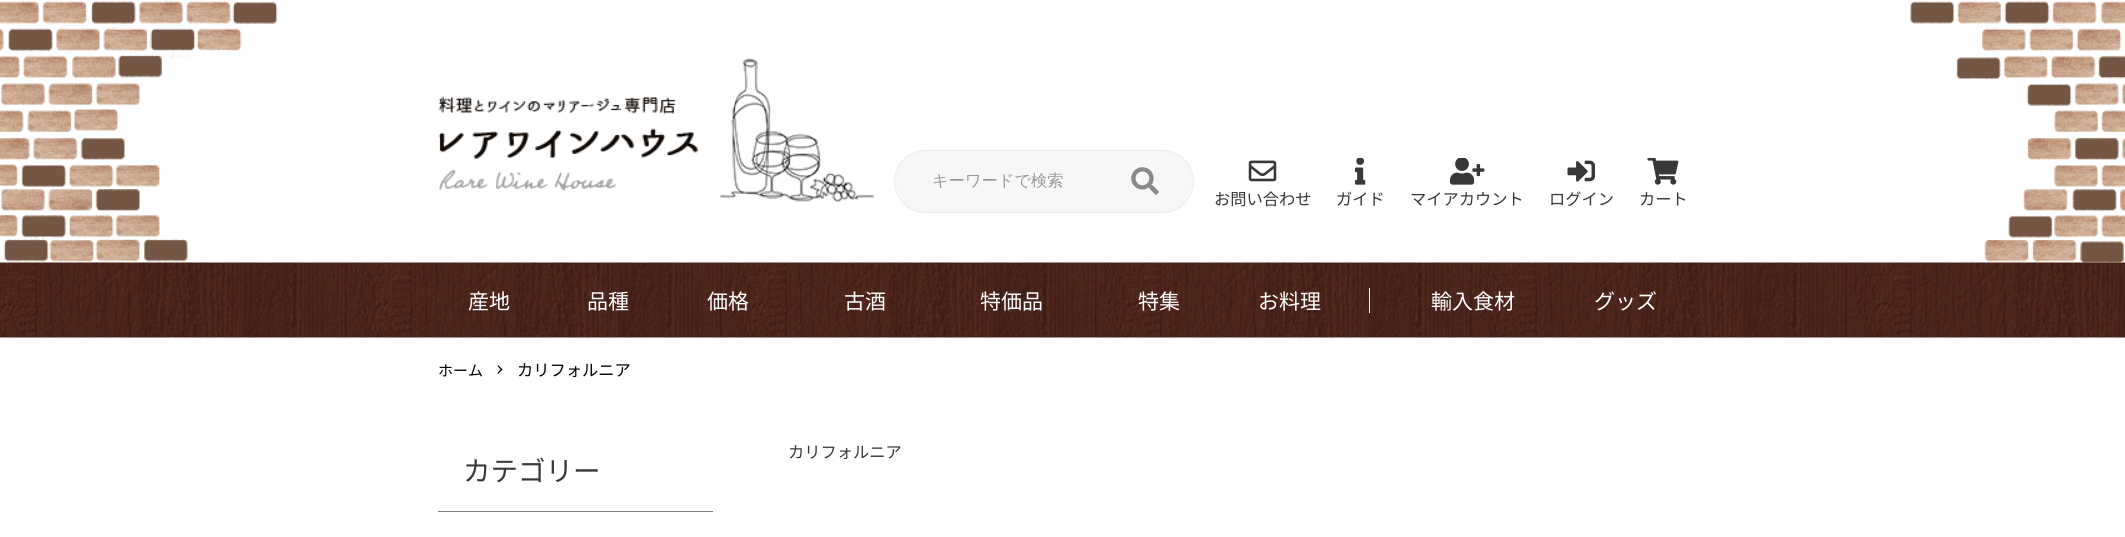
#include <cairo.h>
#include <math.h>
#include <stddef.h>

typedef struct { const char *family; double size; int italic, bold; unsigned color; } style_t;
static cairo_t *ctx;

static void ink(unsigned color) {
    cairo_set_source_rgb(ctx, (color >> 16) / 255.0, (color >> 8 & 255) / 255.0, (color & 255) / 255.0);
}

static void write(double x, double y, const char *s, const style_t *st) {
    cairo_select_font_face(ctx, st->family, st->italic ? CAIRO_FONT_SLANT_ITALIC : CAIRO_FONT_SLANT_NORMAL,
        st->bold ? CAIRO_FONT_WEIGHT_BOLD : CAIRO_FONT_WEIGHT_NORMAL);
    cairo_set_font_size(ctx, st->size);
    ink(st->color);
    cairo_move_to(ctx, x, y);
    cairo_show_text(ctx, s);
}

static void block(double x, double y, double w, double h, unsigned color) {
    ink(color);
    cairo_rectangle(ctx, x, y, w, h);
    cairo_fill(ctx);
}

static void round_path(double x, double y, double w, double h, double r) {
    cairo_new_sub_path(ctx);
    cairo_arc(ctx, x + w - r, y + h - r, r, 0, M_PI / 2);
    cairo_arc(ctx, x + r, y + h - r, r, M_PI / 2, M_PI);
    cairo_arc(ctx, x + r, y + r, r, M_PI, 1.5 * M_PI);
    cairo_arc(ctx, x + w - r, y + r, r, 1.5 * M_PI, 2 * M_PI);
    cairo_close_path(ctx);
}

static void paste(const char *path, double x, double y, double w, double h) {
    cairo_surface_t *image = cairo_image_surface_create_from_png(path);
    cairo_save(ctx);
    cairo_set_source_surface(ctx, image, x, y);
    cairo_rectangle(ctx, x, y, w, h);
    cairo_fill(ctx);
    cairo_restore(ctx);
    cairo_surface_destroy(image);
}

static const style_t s1 = {"WenQuanYi Zen Hei Medium", 16.25, 0, 0, 0x999999};
static const style_t s2 = {"Noto Sans JP", 16.25, 0, 0, 0x3a3737};
static const style_t s3 = {"Noto Sans JP", 21, 0, 0, 0xffffff};
static const style_t s4 = {"Noto Sans JP", 15, 0, 0, 0x000000};
static const style_t s5 = {"Noto Sans JP", 16.25, 0, 0, 0x000000};
static const style_t s6 = {"Noto Sans JP", 27.5, 0, 0, 0x3a3737};

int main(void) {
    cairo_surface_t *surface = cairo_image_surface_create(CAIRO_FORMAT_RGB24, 2125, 537);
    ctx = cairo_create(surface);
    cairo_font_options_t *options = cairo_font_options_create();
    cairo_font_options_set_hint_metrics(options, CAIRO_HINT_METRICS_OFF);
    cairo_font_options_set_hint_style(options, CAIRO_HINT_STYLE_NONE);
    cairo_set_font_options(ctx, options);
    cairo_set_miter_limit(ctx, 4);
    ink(0xffffff);
    cairo_paint(ctx);
    paste("pic1.png", 0, 0, 2125, 263);
    paste("pic2.png", 438, 58, 436, 144);
    ink(0xf7f7f7);
    round_path(894.5, 150.5, 299, 62, 31);
    cairo_fill_preserve(ctx);
    ink(0xececec);
    cairo_set_line_width(ctx, 1);
    cairo_stroke(ctx);
    write(932, 186, "キーワードで検索", &s1);
    paste("pic3.png", 1131, 167, 28, 28);
    paste("pic4.png", 1248, 160, 29, 22);
    write(1214, 205, "お問い合わせ", &s2);
    paste("pic5.png", 1355, 158, 11, 27);
    write(1336, 205, "ガイド", &s2);
    paste("pic6.png", 1450, 158, 35, 27);
    write(1410, 205, "マイアカウント", &s2);
    paste("pic7.png", 1567, 160, 28, 22);
    write(1549, 205, "ログイン", &s2);
    paste("pic8.png", 1647, 158, 32, 27);
    write(1639, 205, "カート", &s2);
    paste("pic9.png", 0, 262, 2125, 76);
    write(468, 309, "産地", &s3);
    write(587, 309, "品種", &s3);
    write(707, 309, "価格", &s3);
    write(844, 309, "古酒", &s3);
    write(980, 309, "特価品", &s3);
    write(1138, 309, "特集", &s3);
    write(1258, 309, "お料理", &s3);
    block(1369, 288, 1, 25, 0xffffff);
    write(1431, 309, "輸入食材", &s3);
    write(1594, 309, "グッズ", &s3);
    write(438, 376, "ホーム", &s4);
    cairo_new_path(ctx);
    cairo_move_to(ctx, 497.5, 366);
    cairo_line_to(ctx, 498, 365);
    cairo_line_to(ctx, 502.5, 369.5);
    cairo_line_to(ctx, 501.5, 370.5);
    cairo_close_path(ctx);
    cairo_fill(ctx);
    cairo_new_path(ctx);
    cairo_move_to(ctx, 497.5, 373);
    cairo_line_to(ctx, 501.5, 368.5);
    cairo_line_to(ctx, 502.5, 369.5);
    cairo_line_to(ctx, 498, 374);
    cairo_close_path(ctx);
    cairo_fill(ctx);
    write(517, 376, "カリフォルニア", &s5);
    write(788, 458, "カリフォルニア", &s2);
    write(463, 481, "カテゴリー", &s6);
    block(438, 511, 275, 1, 0x7d7d7d);
    cairo_surface_write_to_png(surface, "screenshot.png");
    cairo_font_options_destroy(options);
    cairo_destroy(ctx);
    cairo_surface_destroy(surface);
    return 0;
}
